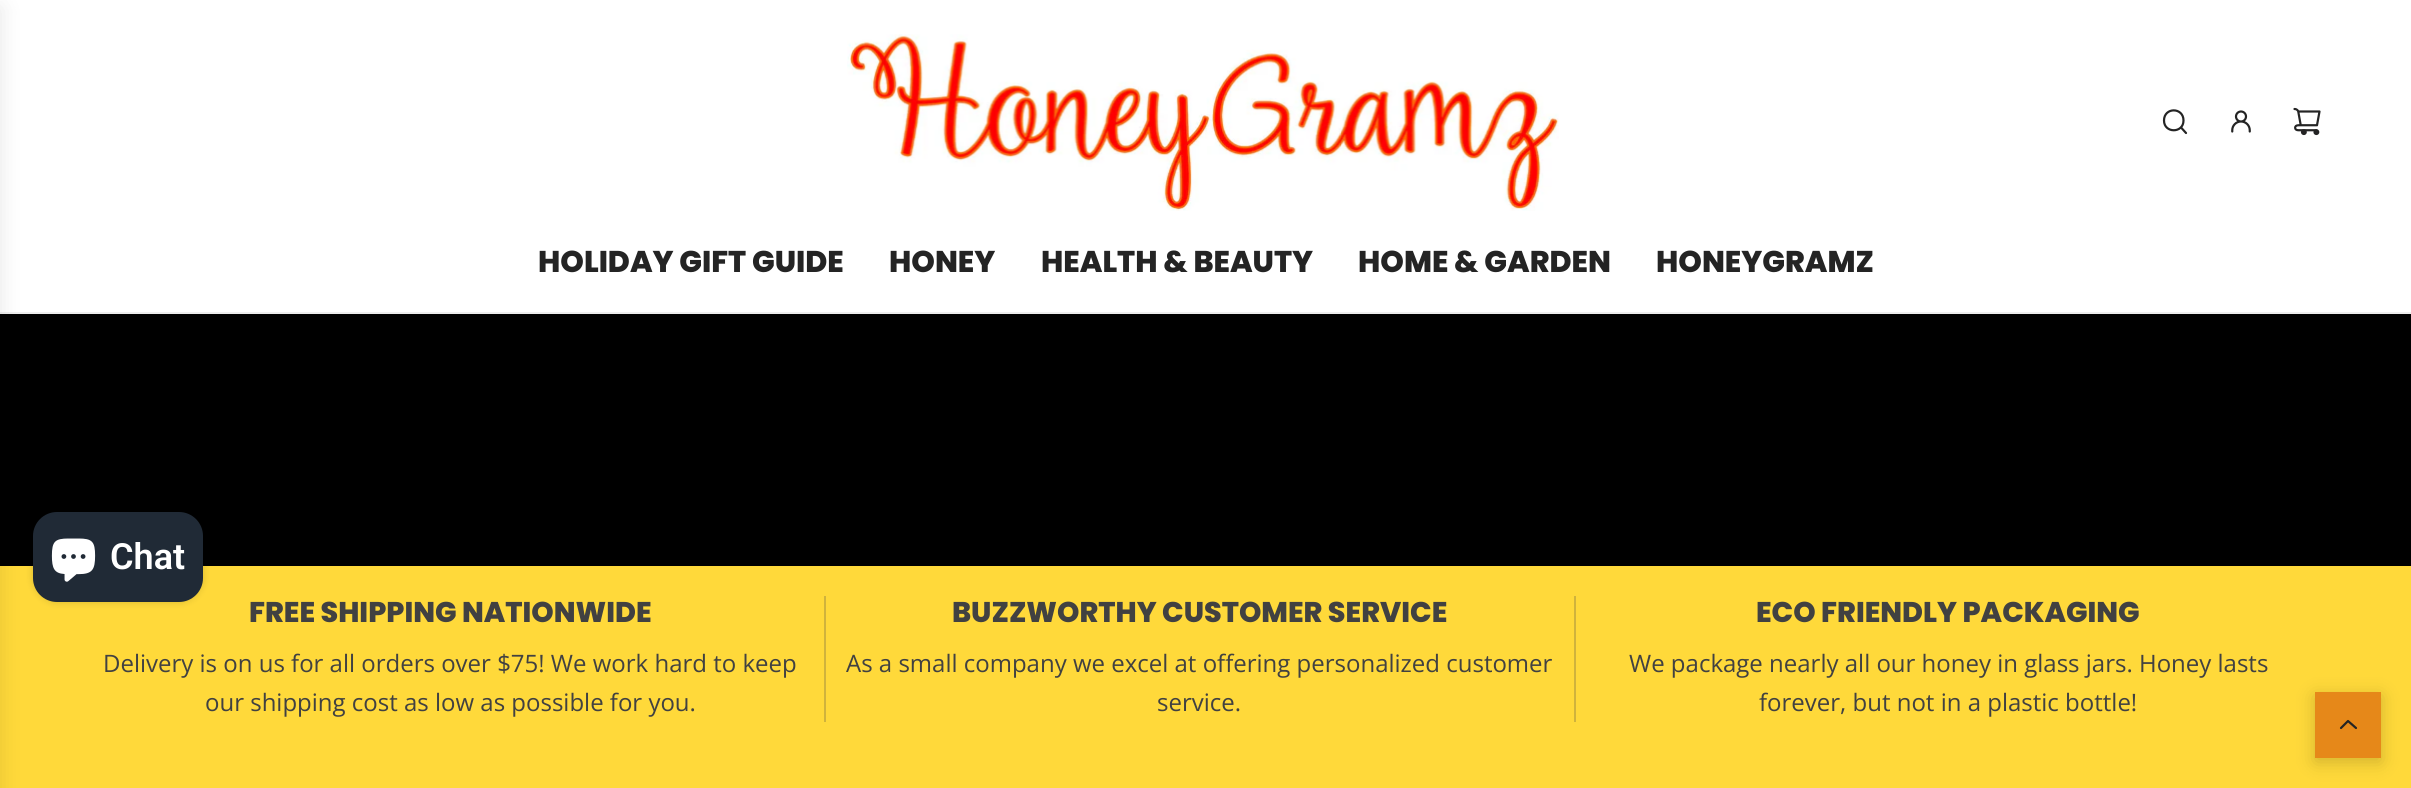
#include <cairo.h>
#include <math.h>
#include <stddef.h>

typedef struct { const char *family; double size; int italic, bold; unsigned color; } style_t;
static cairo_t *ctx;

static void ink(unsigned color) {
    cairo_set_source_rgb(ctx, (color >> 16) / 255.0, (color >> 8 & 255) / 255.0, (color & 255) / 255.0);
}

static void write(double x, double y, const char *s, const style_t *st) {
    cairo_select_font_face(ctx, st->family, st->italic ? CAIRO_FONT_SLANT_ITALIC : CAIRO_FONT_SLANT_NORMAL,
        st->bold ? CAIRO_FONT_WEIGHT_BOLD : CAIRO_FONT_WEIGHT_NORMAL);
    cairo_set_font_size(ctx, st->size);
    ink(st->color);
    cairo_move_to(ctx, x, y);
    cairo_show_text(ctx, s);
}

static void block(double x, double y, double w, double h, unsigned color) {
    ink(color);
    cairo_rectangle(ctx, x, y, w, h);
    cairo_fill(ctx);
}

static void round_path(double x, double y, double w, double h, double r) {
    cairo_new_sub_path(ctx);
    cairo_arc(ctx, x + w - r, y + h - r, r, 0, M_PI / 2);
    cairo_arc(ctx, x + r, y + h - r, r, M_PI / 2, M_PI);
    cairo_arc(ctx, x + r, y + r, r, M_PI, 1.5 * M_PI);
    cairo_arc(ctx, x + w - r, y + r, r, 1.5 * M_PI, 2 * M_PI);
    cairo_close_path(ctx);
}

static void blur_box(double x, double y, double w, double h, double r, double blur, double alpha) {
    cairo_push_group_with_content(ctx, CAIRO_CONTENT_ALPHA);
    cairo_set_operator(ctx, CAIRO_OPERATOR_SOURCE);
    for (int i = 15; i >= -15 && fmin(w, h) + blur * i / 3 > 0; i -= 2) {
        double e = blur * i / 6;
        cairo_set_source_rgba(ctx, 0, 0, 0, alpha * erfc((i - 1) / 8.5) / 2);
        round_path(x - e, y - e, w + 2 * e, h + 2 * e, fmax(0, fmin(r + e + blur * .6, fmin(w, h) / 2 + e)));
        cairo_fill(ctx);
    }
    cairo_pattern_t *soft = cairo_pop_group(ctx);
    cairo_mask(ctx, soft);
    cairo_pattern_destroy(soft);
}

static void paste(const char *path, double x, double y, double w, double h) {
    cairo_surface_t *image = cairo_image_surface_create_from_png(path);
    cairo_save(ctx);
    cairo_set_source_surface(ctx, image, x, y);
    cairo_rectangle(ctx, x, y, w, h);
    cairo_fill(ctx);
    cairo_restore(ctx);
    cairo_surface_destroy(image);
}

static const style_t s1 = {"Poppins ExtraBold", 30, 0, 0, 0x242424};
static const style_t s2 = {"Poppins ExtraBold", 28.5, 0, 0, 0x414141};
static const style_t s3 = {"Open Sans", 24, 0, 0, 0x414141};
static const style_t s4 = {"Roboto SemiBold", 36, 0, 0, 0xffffff};

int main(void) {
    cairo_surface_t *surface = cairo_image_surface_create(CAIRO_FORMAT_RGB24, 2411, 788);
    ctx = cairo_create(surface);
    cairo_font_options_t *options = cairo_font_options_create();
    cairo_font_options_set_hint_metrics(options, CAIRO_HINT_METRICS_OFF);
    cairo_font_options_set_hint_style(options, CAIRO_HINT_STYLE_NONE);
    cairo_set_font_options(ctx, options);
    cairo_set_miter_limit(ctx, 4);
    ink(0xffd93a);
    cairo_paint(ctx);
    block(0, 0, 2411, 312, 0xffffff);
    block(0, 312, 2411, 2, 0xeeeeee);
    block(0, 314, 2411, 252, 0x000000);
    ink(0x000000);
    blur_box(-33, 8, 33, 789, 0, 11, 0.1);
    paste("pic1.png", 847, 34, 712, 177);
    cairo_new_path(ctx);
    cairo_move_to(ctx, 2181.5, 128);
    cairo_line_to(ctx, 2186, 133);
    cairo_move_to(ctx, 2164, 120.5);
    cairo_curve_to(ctx, 2164, 133.5, 2183.5, 133.5, 2183.5, 120.5);
    cairo_curve_to(ctx, 2183.5, 107, 2164, 107, 2164, 120.5);
    cairo_close_path(ctx);
    ink(0x242424);
    cairo_set_line_width(ctx, 2.2);
    cairo_set_line_cap(ctx, CAIRO_LINE_CAP_ROUND);
    cairo_set_line_join(ctx, CAIRO_LINE_JOIN_ROUND);
    cairo_stroke(ctx);
    paste("pic2.png", 2231, 110, 20, 23);
    paste("pic3.png", 2293, 107, 28, 29);
    write(538, 272, "HOLIDAY GIFT GUIDE", &s1);
    write(889, 272, "HONEY", &s1);
    write(1041, 272, "HEALTH & BEAUTY", &s1);
    write(1358, 272, "HOME & GARDEN", &s1);
    write(1656, 272, "HONEYGRAMZ", &s1);
    write(249, 622, "FREE SHIPPING NATIONWIDE", &s2);
    write(103, 672, "Delivery is on us for all orders over $75! We work hard to keep", &s3);
    write(205, 711, "our shipping cost as low as possible for you.", &s3);
    block(824, 596, 2, 126, 0xd0b33c);
    write(952, 622, "BUZZWORTHY CUSTOMER SERVICE", &s2);
    write(846, 672, "As a small company we excel at offering personalized customer", &s3);
    write(1157, 711, "service.", &s3);
    block(1574, 596, 2, 126, 0xd0b33c);
    write(1756, 622, "ECO FRIENDLY PACKAGING", &s2);
    write(1629, 672, "We package nearly all our honey in glass jars. Honey lasts", &s3);
    write(1759, 711, "forever, but not in a plastic bottle!", &s3);
    ink(0x000000);
    blur_box(33, 512, 170, 90, 24, 4, 0.15);
    ink(0x202a36);
    round_path(33, 512, 170, 90, 24);
    cairo_fill(ctx);
    paste("pic4.png", 51, 538, 45, 44);
    write(110, 569, "Chat", &s4);
    ink(0x000000);
    blur_box(2315, 696, 66, 66, 0, 9, 0.18);
    block(2315, 692, 66, 66, 0xe68819);
    cairo_new_path(ctx);
    cairo_move_to(ctx, 2341, 728);
    cairo_line_to(ctx, 2348, 721);
    cairo_line_to(ctx, 2356, 728);
    ink(0x242424);
    cairo_stroke(ctx);
    cairo_surface_write_to_png(surface, "screenshot.png");
    cairo_font_options_destroy(options);
    cairo_destroy(ctx);
    cairo_surface_destroy(surface);
    return 0;
}
